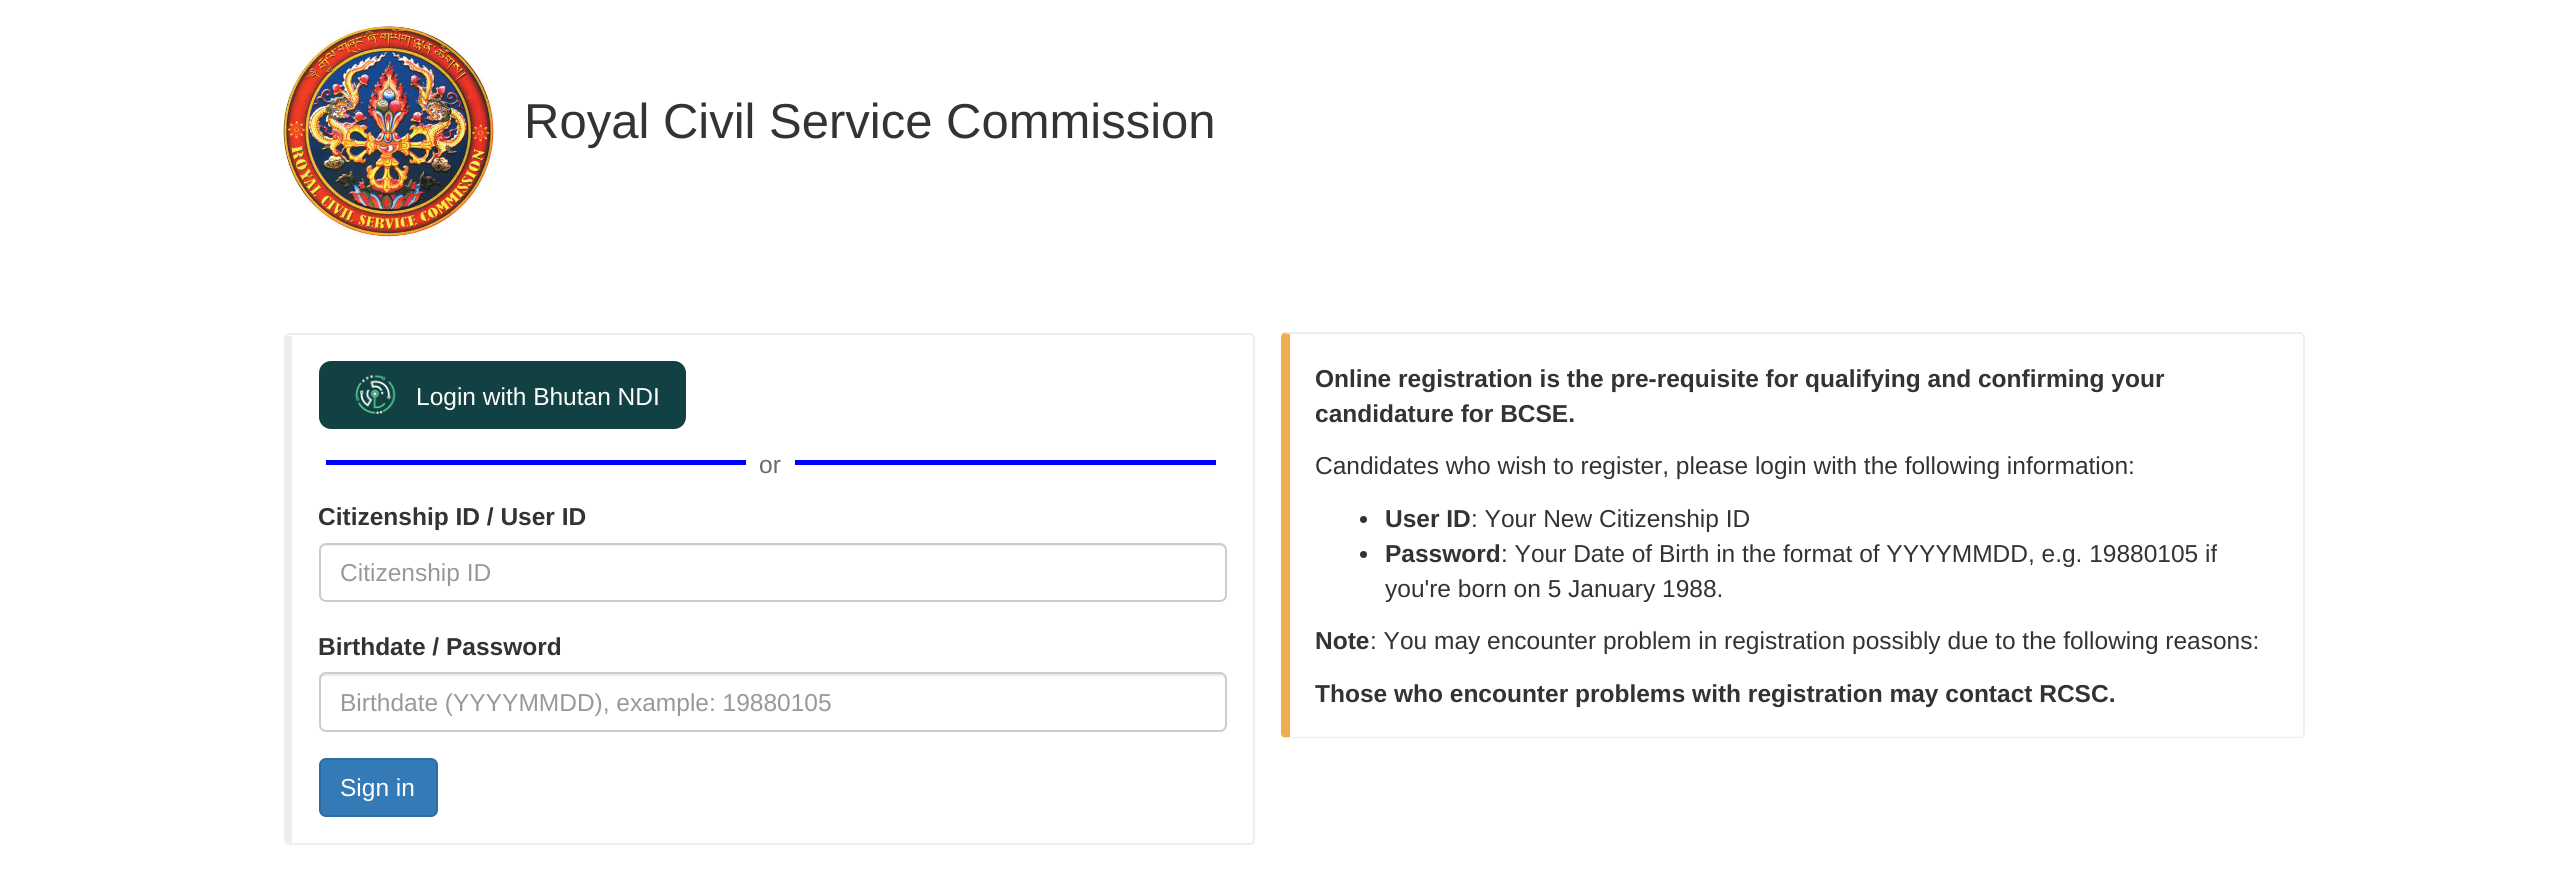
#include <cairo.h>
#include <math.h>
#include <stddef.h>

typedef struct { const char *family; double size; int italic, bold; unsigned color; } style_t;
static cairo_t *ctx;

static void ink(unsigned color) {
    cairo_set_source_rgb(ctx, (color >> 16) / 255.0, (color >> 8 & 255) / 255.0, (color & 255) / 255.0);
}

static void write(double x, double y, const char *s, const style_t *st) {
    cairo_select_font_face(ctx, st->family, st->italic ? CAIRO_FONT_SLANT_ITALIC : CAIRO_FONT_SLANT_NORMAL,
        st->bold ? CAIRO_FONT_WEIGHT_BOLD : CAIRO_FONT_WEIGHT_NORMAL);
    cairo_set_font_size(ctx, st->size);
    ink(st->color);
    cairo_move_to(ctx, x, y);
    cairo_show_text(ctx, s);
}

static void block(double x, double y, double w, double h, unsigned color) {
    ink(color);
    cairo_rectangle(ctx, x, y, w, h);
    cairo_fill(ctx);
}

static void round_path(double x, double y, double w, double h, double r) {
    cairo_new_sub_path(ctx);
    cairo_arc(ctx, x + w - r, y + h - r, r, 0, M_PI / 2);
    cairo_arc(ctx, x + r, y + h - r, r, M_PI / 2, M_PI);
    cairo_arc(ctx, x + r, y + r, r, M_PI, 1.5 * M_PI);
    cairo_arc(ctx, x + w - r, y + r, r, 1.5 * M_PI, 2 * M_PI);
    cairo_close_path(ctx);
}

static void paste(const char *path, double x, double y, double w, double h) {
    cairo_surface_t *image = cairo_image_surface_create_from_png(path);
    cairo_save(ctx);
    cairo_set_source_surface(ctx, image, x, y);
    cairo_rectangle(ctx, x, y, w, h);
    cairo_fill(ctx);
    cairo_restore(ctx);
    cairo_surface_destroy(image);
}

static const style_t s1 = {"Liberation Sans", 49, 0, 0, 0x333333};
static const style_t s2 = {"Liberation Sans", 24.5, 0, 0, 0xffffff};
static const style_t s3 = {"Liberation Sans", 24.5, 0, 0, 0x696969};
static const style_t s4 = {"Liberation Sans", 24.5, 0, 1, 0x333333};
static const style_t s5 = {"Liberation Sans", 24.5, 0, 0, 0x999999};
static const style_t s6 = {"Liberation Sans", 24.5, 0, 0, 0x333333};

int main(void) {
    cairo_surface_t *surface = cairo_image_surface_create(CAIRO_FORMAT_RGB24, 2560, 885);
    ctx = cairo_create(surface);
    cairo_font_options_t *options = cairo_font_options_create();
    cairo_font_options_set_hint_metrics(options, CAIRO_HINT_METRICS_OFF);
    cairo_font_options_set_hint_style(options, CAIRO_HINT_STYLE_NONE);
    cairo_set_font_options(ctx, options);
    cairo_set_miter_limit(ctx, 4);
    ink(0xffffff);
    cairo_paint(ctx);
    paste("pic1.png", 283, 26, 211, 211);
    write(524, 138, "Royal Civil Service Commission", &s1);
    round_path(285, 334, 969, 510, 4);
    ink(0xeeeeee);
    cairo_stroke(ctx);
    block(285, 336, 7, 508, 0xeeeeee);
    ink(0x124143);
    round_path(319, 361, 367, 68, 12);
    cairo_fill(ctx);
    paste("pic2.png", 355, 375, 41, 40);
    write(416, 405, "Login with Bhutan NDI", &s2);
    block(326, 460, 420, 5, 0x0000ff);
    write(759, 473, "or", &s3);
    block(795, 460, 421, 5, 0x0000ff);
    write(318, 525, "Citizenship ID / User ID", &s4);
    ink(0xececec);
    cairo_new_path(ctx);
    cairo_move_to(ctx, 326, 546);
    cairo_line_to(ctx, 1220, 546);
    cairo_curve_to(ctx, 1223, 546, 1225, 548, 1225, 551);
    cairo_line_to(ctx, 1225, 549);
    cairo_curve_to(ctx, 1225, 546, 1223, 544, 1220, 544);
    cairo_line_to(ctx, 325, 544);
    cairo_curve_to(ctx, 322, 544, 320, 546, 320, 549);
    cairo_line_to(ctx, 320, 551);
    cairo_curve_to(ctx, 320, 548, 323, 546, 326, 546);
    cairo_close_path(ctx);
    cairo_fill(ctx);
    round_path(320, 544, 906, 57, 6);
    ink(0xcccccc);
    cairo_stroke(ctx);
    write(340, 581, "Citizenship ID", &s5);
    write(318, 655, "Birthdate / Password", &s4);
    ink(0xececec);
    cairo_new_path(ctx);
    cairo_move_to(ctx, 326, 676);
    cairo_line_to(ctx, 1220, 676);
    cairo_curve_to(ctx, 1223, 676, 1225, 678, 1225, 681);
    cairo_line_to(ctx, 1225, 679);
    cairo_curve_to(ctx, 1225, 676, 1223, 674, 1220, 674);
    cairo_line_to(ctx, 325, 674);
    cairo_curve_to(ctx, 322, 674, 320, 676, 320, 679);
    cairo_line_to(ctx, 320, 681);
    cairo_curve_to(ctx, 320, 678, 323, 676, 326, 676);
    cairo_close_path(ctx);
    cairo_fill(ctx);
    round_path(320, 673, 906, 58, 6);
    ink(0xcccccc);
    cairo_stroke(ctx);
    cairo_save(ctx);
    cairo_rectangle(ctx, 341, 688, 863, 28);
    cairo_clip(ctx);
    write(340, 711, "Birthdate (YYYYMMDD), example: 19880105", &s5);
    cairo_restore(ctx);
    ink(0x337ab7);
    round_path(320, 759, 117, 57, 6);
    cairo_fill_preserve(ctx);
    ink(0x2e6da4);
    cairo_stroke(ctx);
    write(340, 796, "Sign in", &s2);
    ink(0xeeeeee);
    cairo_new_path(ctx);
    cairo_move_to(ctx, 1290, 334);
    cairo_line_to(ctx, 1283, 333);
    cairo_line_to(ctx, 1284, 332);
    cairo_line_to(ctx, 2302, 332);
    cairo_line_to(ctx, 2303, 334);
    cairo_line_to(ctx, 2302, 335);
    cairo_line_to(ctx, 2300, 334);
    cairo_close_path(ctx);
    cairo_fill(ctx);
    cairo_new_path(ctx);
    cairo_move_to(ctx, 2305, 734);
    cairo_line_to(ctx, 2303, 737);
    cairo_line_to(ctx, 2302, 736);
    cairo_line_to(ctx, 2303, 733);
    cairo_line_to(ctx, 2303, 338);
    cairo_line_to(ctx, 2302, 335);
    cairo_line_to(ctx, 2303, 334);
    cairo_line_to(ctx, 2305, 336);
    cairo_close_path(ctx);
    cairo_fill(ctx);
    cairo_new_path(ctx);
    cairo_move_to(ctx, 2303, 737);
    cairo_line_to(ctx, 2300, 738);
    cairo_line_to(ctx, 1284, 738);
    cairo_line_to(ctx, 1290, 737);
    cairo_line_to(ctx, 2300, 737);
    cairo_line_to(ctx, 2302, 736);
    cairo_close_path(ctx);
    cairo_fill(ctx);
    ink(0xf0ad4e);
    cairo_new_path(ctx);
    cairo_move_to(ctx, 1281, 338);
    cairo_line_to(ctx, 1281, 734);
    cairo_curve_to(ctx, 1282, 739, 1286, 737, 1290, 737);
    cairo_line_to(ctx, 1290, 334);
    cairo_line_to(ctx, 1283, 333);
    cairo_curve_to(ctx, 1282, 334, 1281, 336, 1281, 338);
    cairo_close_path(ctx);
    cairo_fill(ctx);
    write(1315, 387, "Online registration is the pre-requisite for qualifying and confirming your", &s4);
    write(1315, 422, "candidature for BCSE.", &s4);
    write(1315, 474, "Candidates who wish to register, please login with the following information:", &s6);
    cairo_new_path(ctx);
    cairo_arc(ctx, 1363.5, 519.5, 3.5, 0, 2 * M_PI);
    cairo_fill(ctx);
    write(1385, 527, "User ID", &s4);
    write(1471, 527, ": Your New Citizenship ID", &s6);
    cairo_new_path(ctx);
    cairo_arc(ctx, 1363.5, 554.5, 3.5, 0, 2 * M_PI);
    cairo_fill(ctx);
    write(1385, 562, "Password", &s4);
    write(1501, 562, ": Your Date of Birth in the format of YYYYMMDD, e.g. 19880105 if", &s6);
    write(1385, 597, "you're born on 5 January 1988.", &s6);
    write(1315, 649, "Note", &s4);
    write(1370, 649, ": You may encounter problem in registration possibly due to the following reasons:", &s6);
    write(1315, 702, "Those who encounter problems with registration may contact RCSC.", &s4);
    cairo_surface_write_to_png(surface, "screenshot.png");
    cairo_font_options_destroy(options);
    cairo_destroy(ctx);
    cairo_surface_destroy(surface);
    return 0;
}
